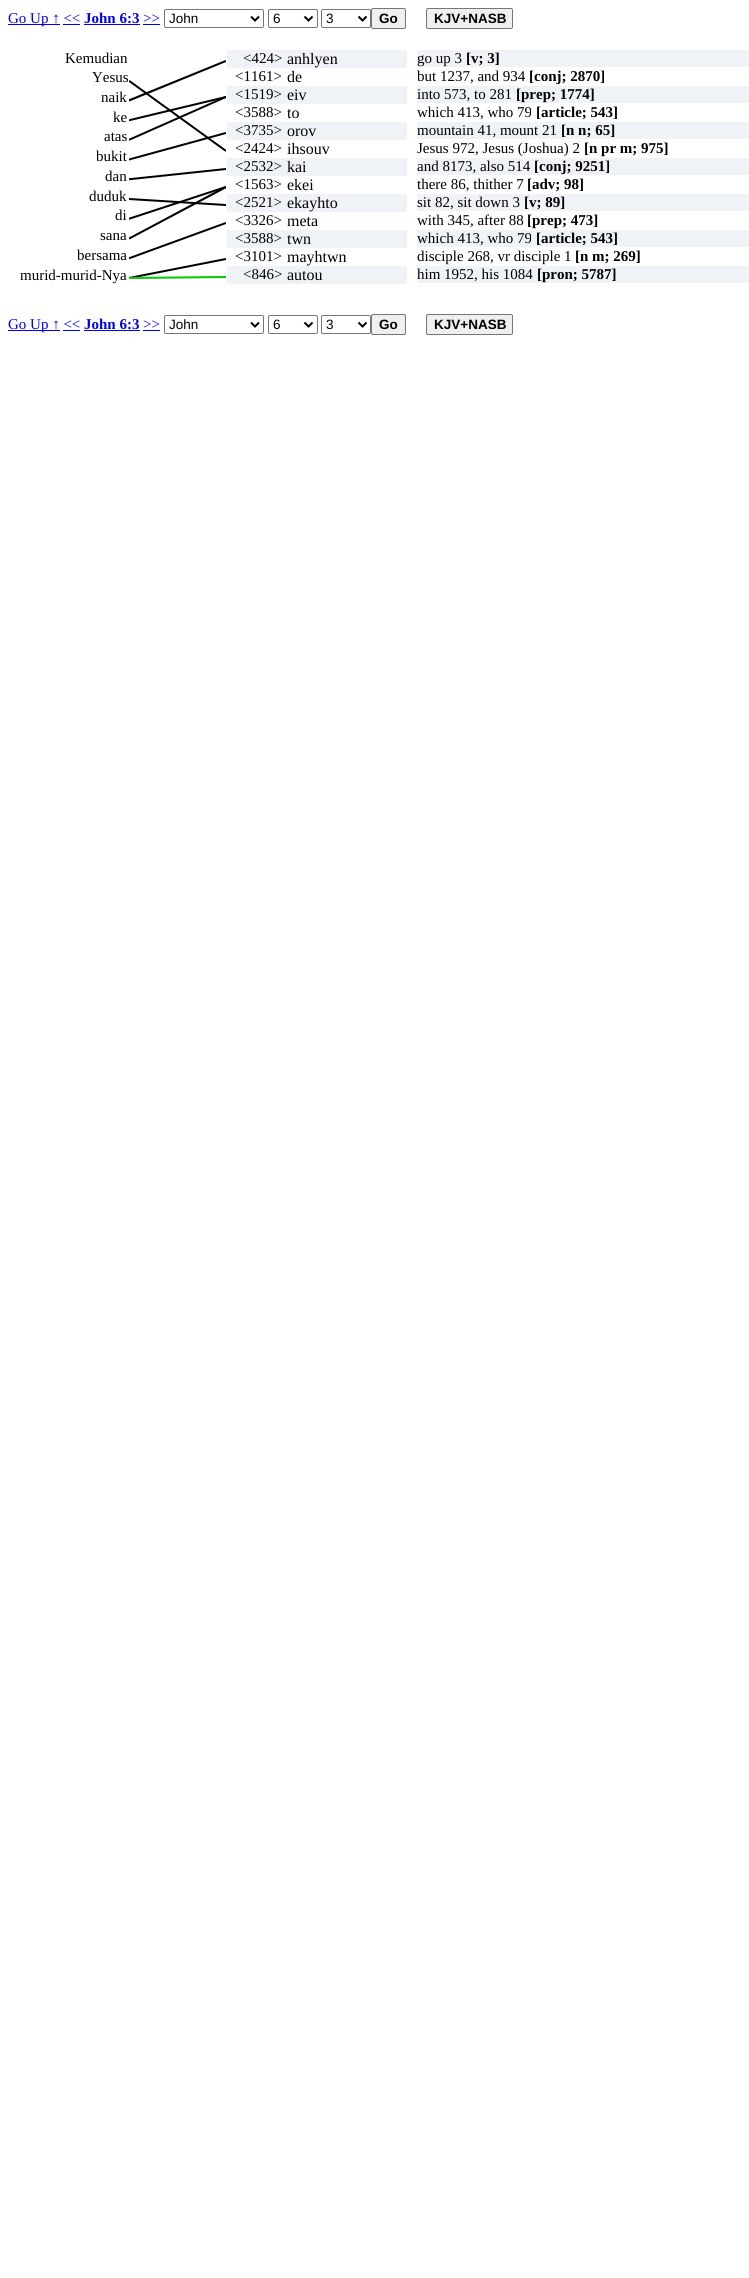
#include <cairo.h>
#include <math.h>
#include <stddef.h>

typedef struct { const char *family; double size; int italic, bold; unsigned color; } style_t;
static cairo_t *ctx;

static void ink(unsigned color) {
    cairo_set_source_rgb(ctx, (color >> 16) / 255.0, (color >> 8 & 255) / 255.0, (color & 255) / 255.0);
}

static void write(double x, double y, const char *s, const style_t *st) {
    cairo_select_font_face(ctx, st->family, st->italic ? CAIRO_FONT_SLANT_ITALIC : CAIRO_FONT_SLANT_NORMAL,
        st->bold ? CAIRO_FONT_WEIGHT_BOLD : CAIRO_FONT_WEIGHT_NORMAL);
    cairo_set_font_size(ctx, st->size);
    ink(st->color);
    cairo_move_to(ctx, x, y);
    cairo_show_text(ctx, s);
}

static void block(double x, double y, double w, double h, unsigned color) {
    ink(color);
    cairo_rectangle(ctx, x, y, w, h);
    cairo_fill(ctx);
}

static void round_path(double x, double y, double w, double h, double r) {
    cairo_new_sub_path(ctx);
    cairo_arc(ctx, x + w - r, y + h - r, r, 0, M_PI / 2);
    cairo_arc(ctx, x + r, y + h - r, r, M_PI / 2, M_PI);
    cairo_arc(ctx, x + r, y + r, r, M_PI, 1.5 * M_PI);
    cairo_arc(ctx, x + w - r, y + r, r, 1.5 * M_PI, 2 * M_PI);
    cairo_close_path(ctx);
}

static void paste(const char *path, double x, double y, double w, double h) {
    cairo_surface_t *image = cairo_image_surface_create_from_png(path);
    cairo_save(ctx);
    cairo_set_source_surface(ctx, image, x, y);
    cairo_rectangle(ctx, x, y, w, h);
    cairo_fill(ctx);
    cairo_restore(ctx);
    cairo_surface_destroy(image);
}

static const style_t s1 = {"Liberation Serif", 15, 0, 0, 0x0000ee};
static const style_t s2 = {"Liberation Serif", 15, 0, 1, 0x0000ee};
static const style_t s3 = {"Liberation Sans", 13.5, 0, 0, 0x000000};
static const style_t s4 = {"Liberation Sans", 13.5, 0, 1, 0x000000};
static const style_t s5 = {"Liberation Serif", 15, 0, 0, 0x000000};
static const style_t s6 = {"Liberation Serif", 16, 0, 0, 0x000000};
static const style_t s7 = {"Liberation Serif", 15, 0, 1, 0x000000};

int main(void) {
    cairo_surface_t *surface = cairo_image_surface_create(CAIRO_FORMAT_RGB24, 749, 2278);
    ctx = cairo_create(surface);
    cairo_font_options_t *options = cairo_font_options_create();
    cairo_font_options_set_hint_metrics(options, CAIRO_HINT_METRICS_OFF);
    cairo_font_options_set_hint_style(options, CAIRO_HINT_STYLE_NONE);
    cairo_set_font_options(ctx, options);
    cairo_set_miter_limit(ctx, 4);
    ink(0xffffff);
    cairo_paint(ctx);
    block(8, 24, 52, 1, 0x0000ee);
    write(8, 23, "Go Up ↑ <<", &s1);
    write(84, 23, "John 6:3", &s2);
    block(84, 24, 56, 1, 0x0000ee);
    write(143, 23, ">>", &s1);
    block(143, 24, 17, 1, 0x0000ee);
    round_path(164.5, 9.5, 99, 18, 1.5);
    ink(0x767676);
    cairo_set_line_width(ctx, 1);
    cairo_stroke(ctx);
    cairo_new_path(ctx);
    cairo_move_to(ctx, 251, 16.5);
    cairo_line_to(ctx, 255, 20.5);
    cairo_line_to(ctx, 259, 16.5);
    ink(0x000000);
    cairo_set_line_width(ctx, 2);
    cairo_stroke(ctx);
    write(169, 23, "John", &s3);
    round_path(268.5, 9.5, 49, 18, 1.5);
    ink(0x767676);
    cairo_set_line_width(ctx, 1);
    cairo_stroke(ctx);
    cairo_new_path(ctx);
    cairo_move_to(ctx, 304.5, 16.5);
    cairo_line_to(ctx, 308.5, 20.5);
    cairo_line_to(ctx, 312.5, 16.5);
    ink(0x000000);
    cairo_set_line_width(ctx, 2);
    cairo_stroke(ctx);
    write(273, 23, "6", &s3);
    round_path(321.5, 9.5, 49, 18, 1.5);
    ink(0x767676);
    cairo_set_line_width(ctx, 1);
    cairo_stroke(ctx);
    cairo_new_path(ctx);
    cairo_move_to(ctx, 358.5, 16.5);
    cairo_line_to(ctx, 362.5, 20.5);
    cairo_line_to(ctx, 366.5, 16.5);
    ink(0x000000);
    cairo_set_line_width(ctx, 2);
    cairo_stroke(ctx);
    write(326, 23, "3", &s3);
    ink(0xefefef);
    round_path(371.5, 8.5, 34, 20, 1.5);
    cairo_fill_preserve(ctx);
    ink(0x767676);
    cairo_set_line_width(ctx, 1);
    cairo_stroke(ctx);
    write(379, 23, "Go", &s4);
    ink(0xefefef);
    round_path(426.5, 8.5, 86, 20, 1.5);
    cairo_fill_preserve(ctx);
    ink(0x767676);
    cairo_stroke(ctx);
    write(434, 23, "KJV+NASB", &s4);
    block(63, 24, 17, 1, 0x0000ee);
    write(65, 63, "Kemudian", &s5);
    paste("pic1.png", 129, 60, 97, 219);
    block(227, 50, 180, 18, 0xeff3f7);
    write(243, 63, "<424>", &s5);
    write(287, 64, "anhlyen", &s6);
    block(417, 50, 332, 17, 0xeff3f7);
    write(417, 63, "go up 3", &s5);
    write(466, 63, "[v; 3]", &s7);
    write(92, 82, "Yesus", &s5);
    write(235, 81, "<1161>", &s5);
    write(287, 82, "de", &s6);
    write(417, 81, "but 1237, and 934", &s5);
    write(529, 81, "[conj; 2870]", &s7);
    write(101, 102, "naik", &s5);
    block(227, 86, 180, 18, 0xeff3f7);
    write(235, 99, "<1519>", &s5);
    write(287, 100, "eiv", &s6);
    block(417, 86, 332, 17, 0xeff3f7);
    write(417, 99, "into 573, to 281", &s5);
    write(516, 99, "[prep; 1774]", &s7);
    write(113, 122, "ke", &s5);
    write(235, 117, "<3588>", &s5);
    write(287, 118, "to", &s6);
    write(417, 117, "which 413, who 79", &s5);
    write(536, 117, "[article; 543]", &s7);
    write(104, 141, "atas", &s5);
    block(227, 122, 180, 18, 0xeff3f7);
    write(235, 135, "<3735>", &s5);
    write(287, 136, "orov", &s6);
    block(417, 122, 332, 17, 0xeff3f7);
    write(417, 135, "mountain 41, mount 21", &s5);
    write(561, 135, "[n n; 65]", &s7);
    write(96, 161, "bukit", &s5);
    write(235, 153, "<2424>", &s5);
    write(287, 154, "ihsouv", &s6);
    write(417, 153, "Jesus 972, Jesus (Joshua) 2", &s5);
    write(584, 153, "[n pr m; 975]", &s7);
    write(105, 181, "dan", &s5);
    block(227, 158, 180, 18, 0xeff3f7);
    write(235, 171, "<2532>", &s5);
    write(287, 172, "kai", &s6);
    block(417, 158, 332, 17, 0xeff3f7);
    write(417, 171, "and 8173, also 514", &s5);
    write(534, 171, "[conj; 9251]", &s7);
    write(235, 189, "<1563>", &s5);
    write(287, 190, "ekei", &s6);
    write(417, 189, "there 86, thither 7", &s5);
    write(527, 189, "[adv; 98]", &s7);
    write(89, 201, "duduk", &s5);
    block(227, 194, 180, 18, 0xeff3f7);
    write(235, 207, "<2521>", &s5);
    write(287, 208, "ekayhto", &s6);
    block(417, 194, 332, 17, 0xeff3f7);
    write(417, 207, "sit 82, sit down 3", &s5);
    write(524, 207, "[v; 89]", &s7);
    write(115, 220, "di", &s5);
    write(235, 225, "<3326>", &s5);
    write(287, 226, "meta", &s6);
    write(417, 225, "with 345, after 88", &s5);
    write(527, 225, "[prep; 473]", &s7);
    write(100, 240, "sana", &s5);
    block(227, 230, 180, 18, 0xeff3f7);
    write(235, 243, "<3588>", &s5);
    write(287, 244, "twn", &s6);
    block(417, 230, 332, 17, 0xeff3f7);
    write(417, 243, "which 413, who 79", &s5);
    write(536, 243, "[article; 543]", &s7);
    write(77, 260, "bersama", &s5);
    write(235, 261, "<3101>", &s5);
    write(287, 262, "mayhtwn", &s6);
    write(417, 261, "disciple 268, vr disciple 1", &s5);
    write(575, 261, "[n m; 269]", &s7);
    write(20, 280, "murid-murid-Nya", &s5);
    block(227, 266, 180, 18, 0xeff3f7);
    write(243, 279, "<846>", &s5);
    write(287, 280, "autou", &s6);
    block(417, 266, 332, 17, 0xeff3f7);
    write(417, 279, "him 1952, his 1084", &s5);
    write(537, 279, "[pron; 5787]", &s7);
    block(8, 330, 52, 1, 0x0000ee);
    write(8, 329, "Go Up ↑ <<", &s1);
    write(84, 329, "John 6:3", &s2);
    block(84, 330, 56, 1, 0x0000ee);
    write(143, 329, ">>", &s1);
    block(143, 330, 17, 1, 0x0000ee);
    round_path(164.5, 315.5, 99, 18, 1.5);
    ink(0x767676);
    cairo_stroke(ctx);
    cairo_new_path(ctx);
    cairo_move_to(ctx, 251, 322.5);
    cairo_line_to(ctx, 255, 326.5);
    cairo_line_to(ctx, 259, 322.5);
    ink(0x000000);
    cairo_set_line_width(ctx, 2);
    cairo_stroke(ctx);
    write(169, 329, "John", &s3);
    round_path(268.5, 315.5, 49, 18, 1.5);
    ink(0x767676);
    cairo_set_line_width(ctx, 1);
    cairo_stroke(ctx);
    cairo_new_path(ctx);
    cairo_move_to(ctx, 304.5, 322.5);
    cairo_line_to(ctx, 308.5, 326.5);
    cairo_line_to(ctx, 312.5, 322.5);
    ink(0x000000);
    cairo_set_line_width(ctx, 2);
    cairo_stroke(ctx);
    write(273, 329, "6", &s3);
    round_path(321.5, 315.5, 49, 18, 1.5);
    ink(0x767676);
    cairo_set_line_width(ctx, 1);
    cairo_stroke(ctx);
    cairo_new_path(ctx);
    cairo_move_to(ctx, 358.5, 322.5);
    cairo_line_to(ctx, 362.5, 326.5);
    cairo_line_to(ctx, 366.5, 322.5);
    ink(0x000000);
    cairo_set_line_width(ctx, 2);
    cairo_stroke(ctx);
    write(326, 329, "3", &s3);
    ink(0xefefef);
    round_path(371.5, 314.5, 34, 20, 1.5);
    cairo_fill_preserve(ctx);
    ink(0x767676);
    cairo_set_line_width(ctx, 1);
    cairo_stroke(ctx);
    write(379, 329, "Go", &s4);
    ink(0xefefef);
    round_path(426.5, 314.5, 86, 20, 1.5);
    cairo_fill_preserve(ctx);
    ink(0x767676);
    cairo_stroke(ctx);
    write(434, 329, "KJV+NASB", &s4);
    block(63, 330, 17, 1, 0x0000ee);
    cairo_surface_write_to_png(surface, "screenshot.png");
    cairo_font_options_destroy(options);
    cairo_destroy(ctx);
    cairo_surface_destroy(surface);
    return 0;
}
